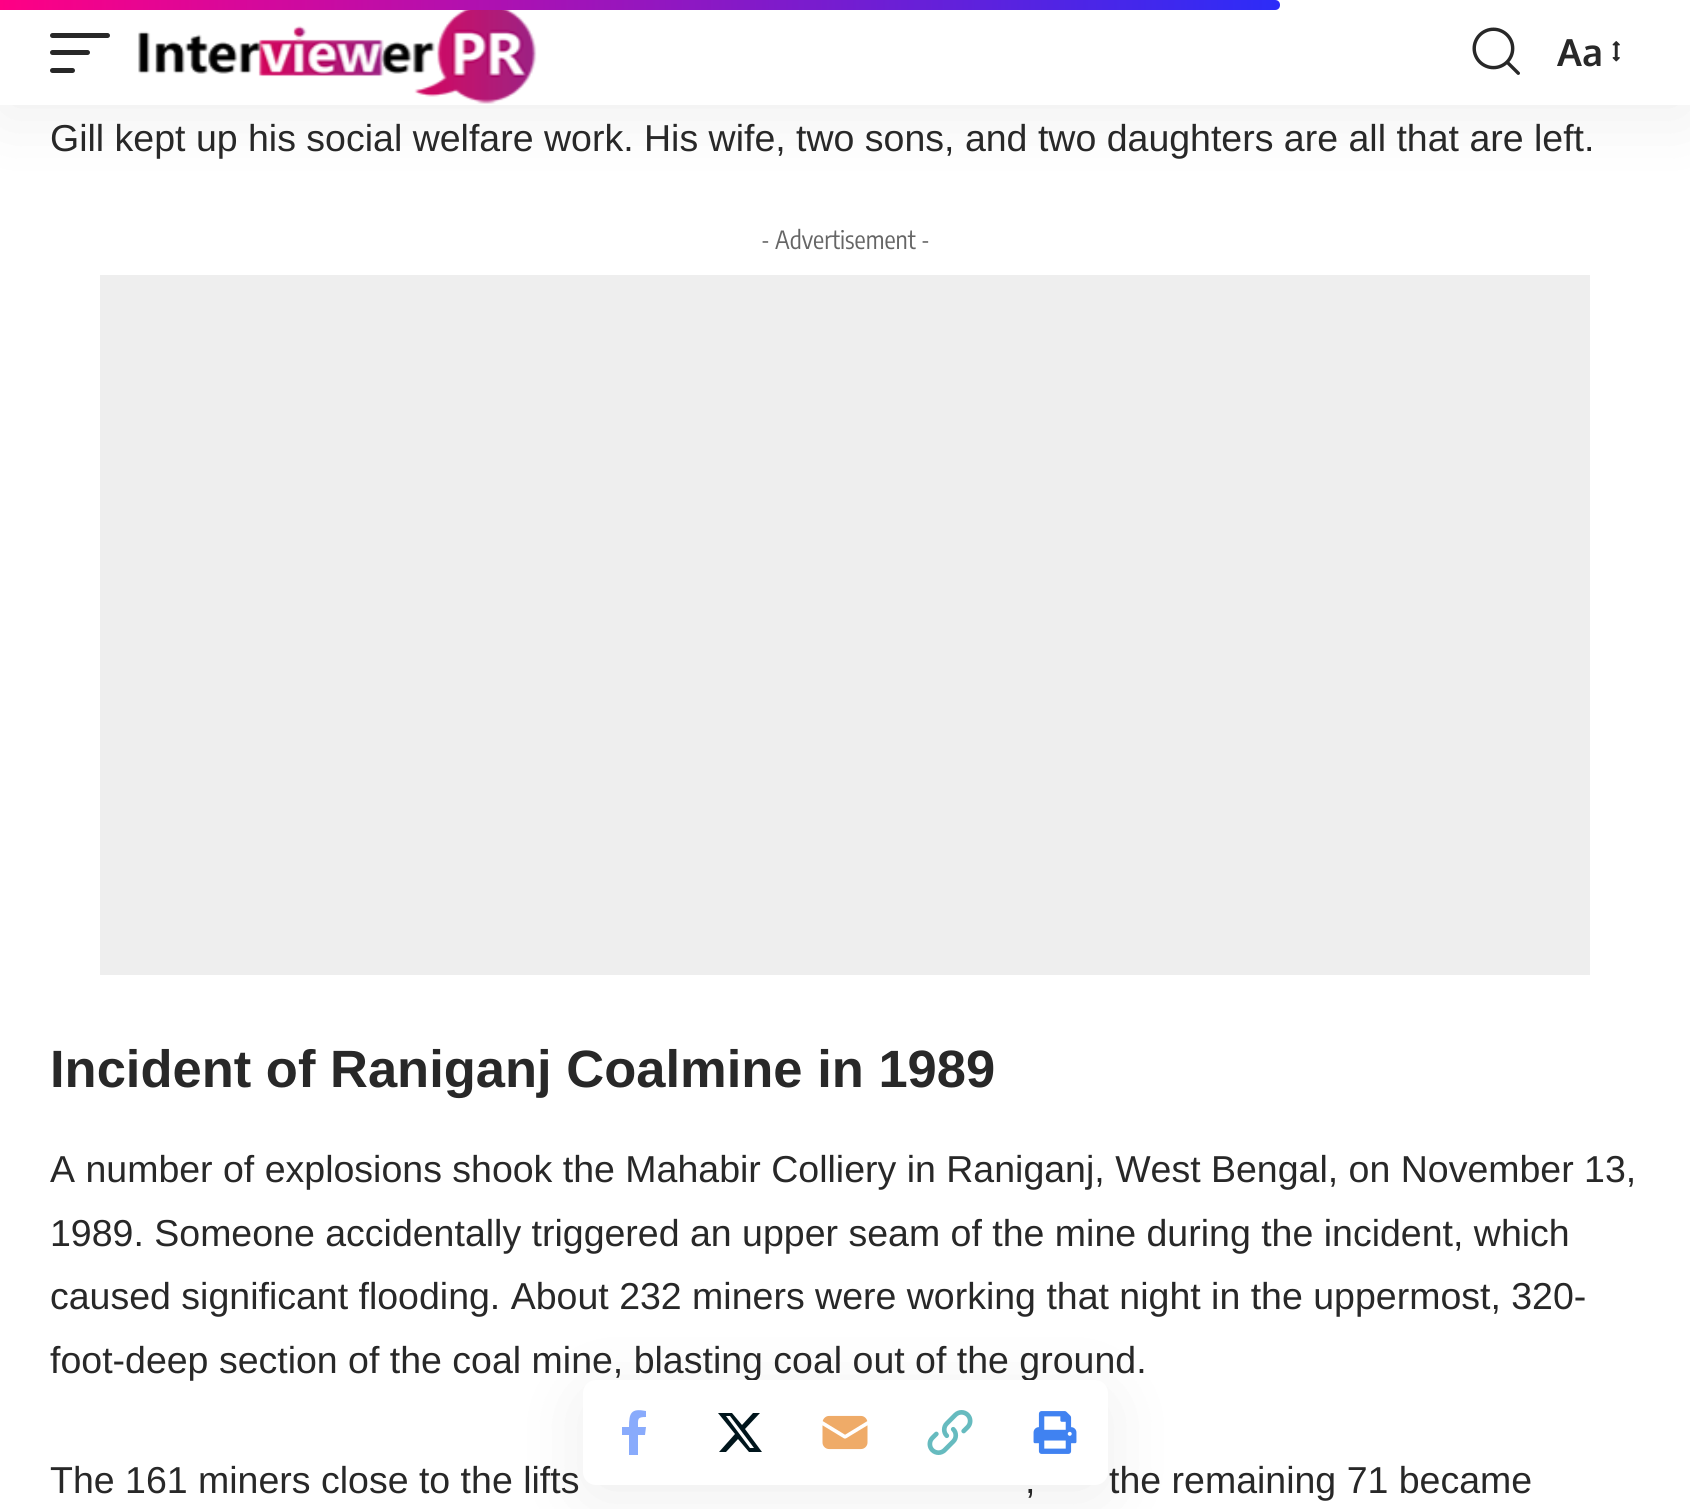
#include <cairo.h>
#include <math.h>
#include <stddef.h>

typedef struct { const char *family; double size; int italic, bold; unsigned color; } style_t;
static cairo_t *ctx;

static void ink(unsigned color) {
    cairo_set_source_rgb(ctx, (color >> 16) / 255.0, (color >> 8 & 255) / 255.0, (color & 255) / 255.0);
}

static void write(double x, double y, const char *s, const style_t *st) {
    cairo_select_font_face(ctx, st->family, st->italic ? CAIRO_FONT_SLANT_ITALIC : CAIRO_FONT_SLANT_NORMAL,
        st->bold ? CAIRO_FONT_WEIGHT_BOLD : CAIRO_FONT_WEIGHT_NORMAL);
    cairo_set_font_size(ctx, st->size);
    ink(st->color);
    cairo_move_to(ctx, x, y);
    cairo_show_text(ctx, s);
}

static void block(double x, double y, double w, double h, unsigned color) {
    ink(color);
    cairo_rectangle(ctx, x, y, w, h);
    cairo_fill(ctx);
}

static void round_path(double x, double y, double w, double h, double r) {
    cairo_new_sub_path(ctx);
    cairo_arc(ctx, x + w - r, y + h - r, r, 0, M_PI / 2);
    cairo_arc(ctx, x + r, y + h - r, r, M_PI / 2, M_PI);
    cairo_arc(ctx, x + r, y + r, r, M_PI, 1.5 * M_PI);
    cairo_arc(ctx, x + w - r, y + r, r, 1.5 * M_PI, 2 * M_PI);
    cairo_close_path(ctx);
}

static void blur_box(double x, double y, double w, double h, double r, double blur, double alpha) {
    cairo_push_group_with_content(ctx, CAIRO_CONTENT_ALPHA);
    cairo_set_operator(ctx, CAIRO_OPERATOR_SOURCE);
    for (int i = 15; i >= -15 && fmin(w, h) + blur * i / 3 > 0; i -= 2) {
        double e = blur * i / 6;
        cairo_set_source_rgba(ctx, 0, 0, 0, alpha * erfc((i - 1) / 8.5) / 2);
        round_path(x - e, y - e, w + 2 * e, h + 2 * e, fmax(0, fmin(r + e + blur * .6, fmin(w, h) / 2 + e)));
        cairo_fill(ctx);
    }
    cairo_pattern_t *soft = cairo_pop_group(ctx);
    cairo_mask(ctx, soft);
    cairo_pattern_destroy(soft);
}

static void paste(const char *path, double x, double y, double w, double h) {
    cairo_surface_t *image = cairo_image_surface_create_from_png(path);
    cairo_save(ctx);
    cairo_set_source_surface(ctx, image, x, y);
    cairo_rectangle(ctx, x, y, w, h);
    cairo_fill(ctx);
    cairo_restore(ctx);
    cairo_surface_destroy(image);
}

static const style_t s1 = {"Oxygen", 37.5, 0, 1, 0x282828};
static const style_t s2 = {"Liberation Sans", 37.5, 0, 0, 0x282828};
static const style_t s3 = {"Encode Sans Condensed", 25, 0, 0, 0x666666};
static const style_t s4 = {"Liberation Sans", 52.5, 0, 1, 0x282828};

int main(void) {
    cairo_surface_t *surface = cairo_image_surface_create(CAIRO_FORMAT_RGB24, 1690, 1509);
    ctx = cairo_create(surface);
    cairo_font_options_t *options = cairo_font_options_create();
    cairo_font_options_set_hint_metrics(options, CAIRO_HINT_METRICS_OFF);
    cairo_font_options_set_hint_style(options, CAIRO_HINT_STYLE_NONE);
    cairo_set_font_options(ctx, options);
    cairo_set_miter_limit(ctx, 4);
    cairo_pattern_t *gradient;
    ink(0xffffff);
    cairo_paint(ctx);
    ink(0x000000);
    blur_box(0, 10, 1690, 105, 0, 37.5, 0.07);
    block(0, 0, 1690, 105, 0xffffff);
    gradient = cairo_pattern_create_linear(0, 5, 1280, 5);
    cairo_pattern_add_color_stop_rgba(gradient, 0, 1, 0, 0.518, 1);
    cairo_pattern_add_color_stop_rgba(gradient, 1, 0.173, 0.173, 0.973, 1);
    cairo_set_source(ctx, gradient);
    cairo_pattern_destroy(gradient);
    cairo_new_path(ctx);
    cairo_move_to(ctx, 0, 0);
    cairo_line_to(ctx, 1275, 0);
    cairo_curve_to(ctx, 1278, 0, 1280, 2, 1280, 5);
    cairo_curve_to(ctx, 1280, 8, 1278, 10, 1275, 10);
    cairo_line_to(ctx, 0, 10);
    cairo_close_path(ctx);
    cairo_fill(ctx);
    ink(0x282828);
    round_path(50, 33, 60, 5, 2.5);
    cairo_fill(ctx);
    round_path(50, 50, 40, 5, 2.5);
    cairo_fill(ctx);
    round_path(50, 68, 25, 5, 2.5);
    cairo_fill(ctx);
    paste("pic1.png", 138, 10, 399, 94);
    paste("pic2.png", 1472, 27, 48, 48);
    write(1557, 66, "Aa", &s1);
    paste("pic3.png", 1612, 41, 8, 21);
    write(50, 151, "Gill kept up his social welfare work. His wife, two sons, and two daughters are all that are left.", &s2);
    write(761, 249, "- Advertisement -", &s3);
    block(100, 275, 1490, 700, 0xeeeeee);
    write(50, 1087, "Incident of Raniganj Coalmine in 1989", &s4);
    write(50, 1182, "A number of explosions shook the Mahabir Colliery in Raniganj, West Bengal, on November 13,", &s2);
    write(50, 1246, "1989. Someone accidentally triggered an upper seam of the mine during the incident, which", &s2);
    write(50, 1309, "caused significant flooding. About 232 miners were working that night in the uppermost, 320-", &s2);
    write(50, 1373, "foot-deep section of the coal mine, blasting coal out of the ground.", &s2);
    write(50, 1493, "The 161 miners close to the lifts", &s2);
    write(1025, 1493, ",", &s2);
    write(1109, 1493, "the remaining 71 became", &s2);
    ink(0x000000);
    blur_box(583, 1393, 525, 105, 13, 37.5, 0.07);
    ink(0xffffff);
    round_path(583, 1380, 525, 105, 13);
    cairo_fill(ctx);
    ink(0x89abfc);
    cairo_new_path(ctx);
    cairo_move_to(ctx, 645, 1435);
    cairo_line_to(ctx, 646, 1427);
    cairo_line_to(ctx, 638, 1427);
    cairo_curve_to(ctx, 638, 1419, 637, 1417, 646, 1417);
    cairo_line_to(ctx, 646, 1411);
    cairo_curve_to(ctx, 631, 1408, 629, 1413, 629, 1427);
    cairo_line_to(ctx, 622, 1427);
    cairo_line_to(ctx, 622, 1435);
    cairo_line_to(ctx, 629, 1435);
    cairo_line_to(ctx, 629, 1455);
    cairo_line_to(ctx, 638, 1455);
    cairo_line_to(ctx, 638, 1435);
    cairo_close_path(ctx);
    cairo_fill(ctx);
    ink(0x00151c);
    cairo_new_path(ctx);
    cairo_move_to(ctx, 753, 1413);
    cairo_line_to(ctx, 760, 1413);
    cairo_line_to(ctx, 745, 1429);
    cairo_line_to(ctx, 762, 1452);
    cairo_line_to(ctx, 749, 1452);
    cairo_line_to(ctx, 738, 1439);
    cairo_line_to(ctx, 726, 1452);
    cairo_line_to(ctx, 719, 1452);
    cairo_line_to(ctx, 735, 1434);
    cairo_line_to(ctx, 718, 1413);
    cairo_line_to(ctx, 732, 1413);
    cairo_line_to(ctx, 742, 1425);
    cairo_close_path(ctx);
    cairo_move_to(ctx, 750, 1448);
    cairo_line_to(ctx, 754, 1448);
    cairo_line_to(ctx, 730, 1416);
    cairo_line_to(ctx, 726, 1416);
    cairo_close_path(ctx);
    cairo_fill(ctx);
    paste("pic4.png", 822, 1415, 46, 35);
    paste("pic5.png", 927, 1410, 46, 45);
    paste("pic6.png", 1033, 1411, 44, 43);
    cairo_surface_write_to_png(surface, "screenshot.png");
    cairo_font_options_destroy(options);
    cairo_destroy(ctx);
    cairo_surface_destroy(surface);
    return 0;
}
